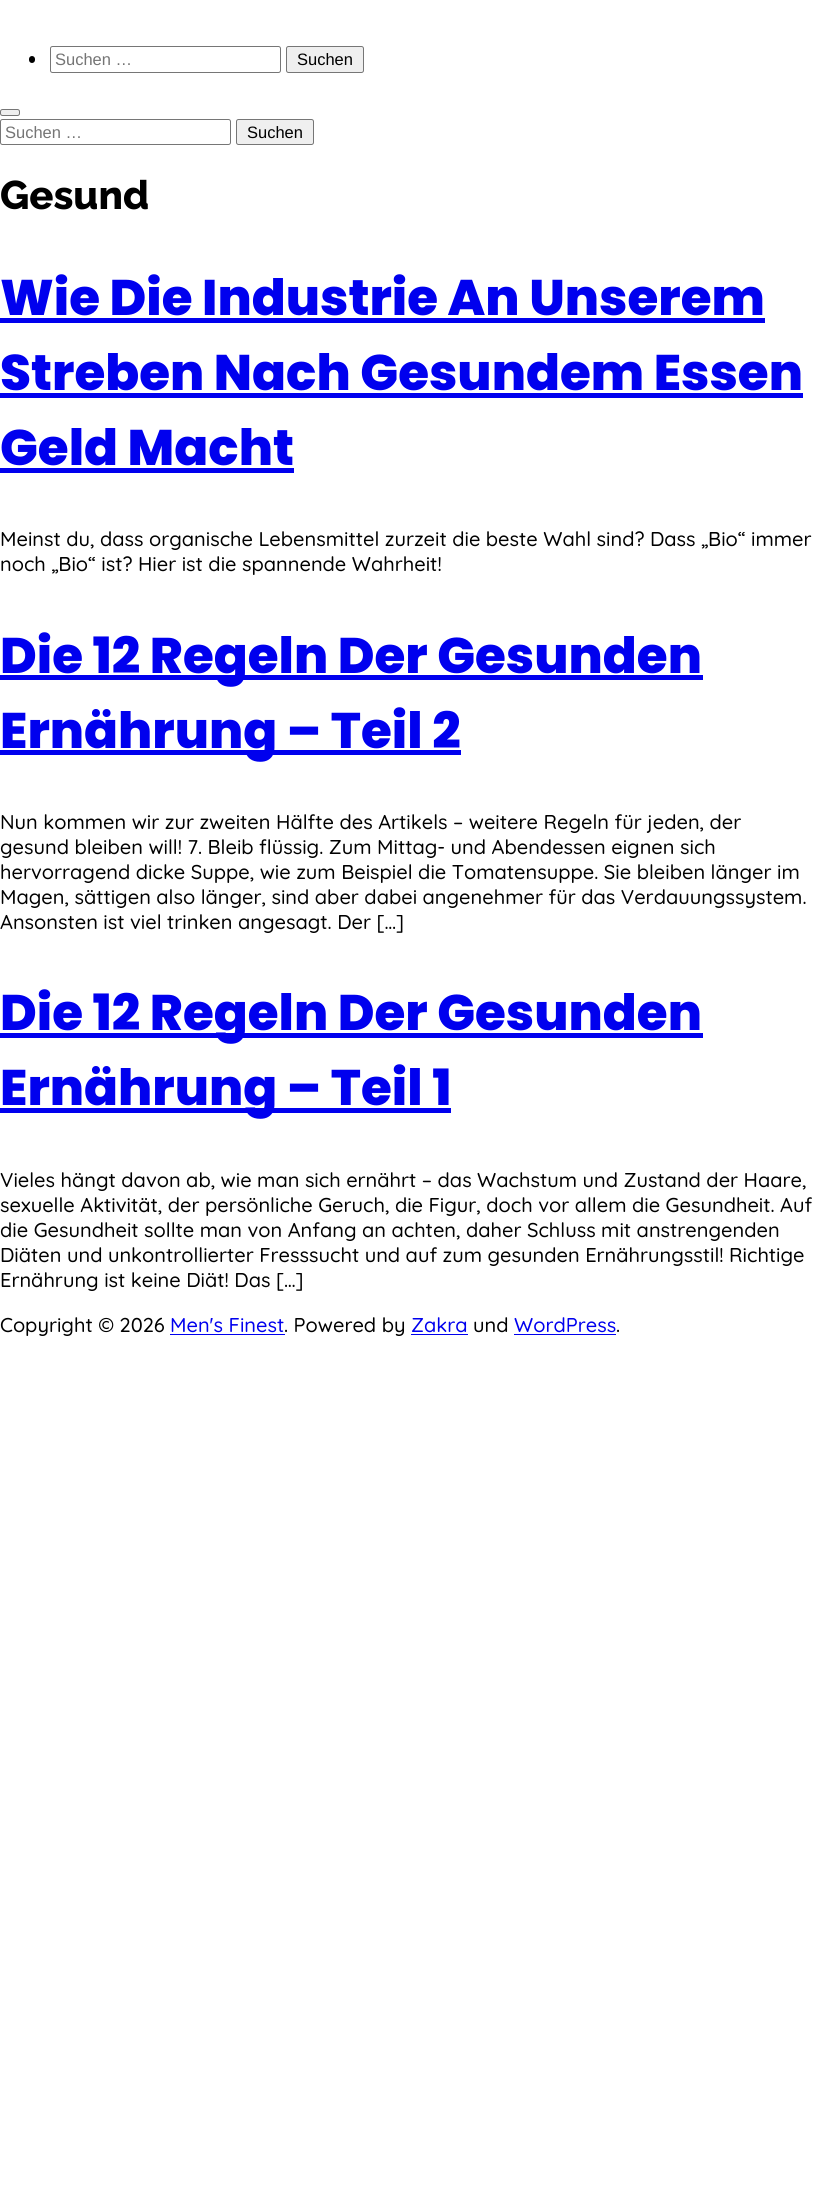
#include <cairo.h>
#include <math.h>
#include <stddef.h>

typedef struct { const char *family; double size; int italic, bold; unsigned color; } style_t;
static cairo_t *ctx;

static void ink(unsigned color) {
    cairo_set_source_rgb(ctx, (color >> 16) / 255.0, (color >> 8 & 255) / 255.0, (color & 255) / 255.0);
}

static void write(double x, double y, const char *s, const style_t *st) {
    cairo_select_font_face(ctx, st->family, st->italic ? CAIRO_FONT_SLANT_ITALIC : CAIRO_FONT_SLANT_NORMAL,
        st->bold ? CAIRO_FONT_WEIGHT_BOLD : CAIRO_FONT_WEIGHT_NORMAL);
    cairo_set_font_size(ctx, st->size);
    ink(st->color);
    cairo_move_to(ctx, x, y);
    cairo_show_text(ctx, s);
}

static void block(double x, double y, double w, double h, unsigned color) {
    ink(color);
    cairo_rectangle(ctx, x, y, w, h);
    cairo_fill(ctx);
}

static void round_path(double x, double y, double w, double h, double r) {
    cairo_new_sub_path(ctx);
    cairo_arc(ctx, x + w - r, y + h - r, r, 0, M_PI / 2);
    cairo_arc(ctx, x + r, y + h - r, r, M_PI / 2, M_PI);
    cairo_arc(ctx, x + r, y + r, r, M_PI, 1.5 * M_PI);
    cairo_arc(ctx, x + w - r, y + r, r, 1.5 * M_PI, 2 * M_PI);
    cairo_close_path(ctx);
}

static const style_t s1 = {"Liberation Sans", 16.5, 0, 0, 0x757575};
static const style_t s2 = {"Liberation Sans", 16.5, 0, 0, 0x000000};
static const style_t s3 = {"Raleway Thin", 40, 0, 0, 0x000000};
static const style_t s4 = {"Poppins ExtraBold", 50, 0, 0, 0x0000ee};
static const style_t s5 = {"Quicksand Medium", 20, 0, 0, 0x000000};
static const style_t s6 = {"Quicksand Medium", 20, 0, 0, 0x0000ee};

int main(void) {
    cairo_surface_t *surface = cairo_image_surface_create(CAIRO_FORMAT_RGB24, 814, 2212);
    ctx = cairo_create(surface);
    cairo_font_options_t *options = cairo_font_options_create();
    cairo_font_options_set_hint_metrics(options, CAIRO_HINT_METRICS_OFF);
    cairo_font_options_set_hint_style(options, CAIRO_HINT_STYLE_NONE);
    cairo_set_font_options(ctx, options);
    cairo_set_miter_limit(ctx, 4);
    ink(0xffffff);
    cairo_paint(ctx);
    ink(0x000000);
    round_path(29, 56, 6, 7, 3);
    cairo_fill(ctx);
    round_path(50.5, 46.5, 230, 26, 2);
    ink(0x767676);
    cairo_set_line_width(ctx, 1);
    cairo_stroke(ctx);
    write(55, 65, "Suchen …", &s1);
    ink(0xefefef);
    round_path(286.5, 46.5, 77, 26, 2);
    cairo_fill_preserve(ctx);
    ink(0x767676);
    cairo_stroke(ctx);
    write(297, 65, "Suchen", &s2);
    ink(0xefefef);
    round_path(0.5, 109.5, 19, 6, 2);
    cairo_fill_preserve(ctx);
    ink(0x767676);
    cairo_stroke(ctx);
    round_path(0.5, 119.5, 230, 25, 2);
    cairo_stroke(ctx);
    write(5, 138, "Suchen …", &s1);
    ink(0xefefef);
    round_path(236.5, 119.5, 77, 25, 2);
    cairo_fill_preserve(ctx);
    ink(0x767676);
    cairo_stroke(ctx);
    write(247, 138, "Suchen", &s2);
    write(0, 209, "Gesund", &s3);
    write(0, 315, "Wie Die Industrie An Unserem", &s4);
    block(0, 318, 765, 5, 0x0000ee);
    write(0, 390, "Streben Nach Gesundem Essen", &s4);
    block(0, 393, 803, 5, 0x0000ee);
    write(0, 465, "Geld Macht", &s4);
    block(0, 468, 294, 5, 0x0000ee);
    write(0, 546, "Meinst du, dass organische Lebensmittel zurzeit die beste Wahl sind? Dass „Bio“ immer", &s5);
    write(0, 571, "noch „Bio“ ist? Hier ist die spannende Wahrheit!", &s5);
    block(0, 675, 703, 5, 0x0000ee);
    write(0, 673, "Die 12 Regeln Der Gesunden", &s4);
    block(0, 750, 461, 5, 0x0000ee);
    write(0, 748, "Ernährung – Teil 2", &s4);
    write(0, 829, "Nun kommen wir zur zweiten Hälfte des Artikels – weitere Regeln für jeden, der", &s5);
    write(0, 854, "gesund bleiben will! 7. Bleib flüssig. Zum Mittag- und Abendessen eignen sich", &s5);
    write(0, 879, "hervorragend dicke Suppe, wie zum Beispiel die Tomatensuppe. Sie bleiben länger im", &s5);
    write(0, 904, "Magen, sättigen also länger, sind aber dabei angenehmer für das Verdauungssystem.", &s5);
    write(0, 929, "Ansonsten ist viel trinken angesagt. Der […]", &s5);
    block(0, 1033, 703, 5, 0x0000ee);
    write(0, 1030, "Die 12 Regeln Der Gesunden", &s4);
    block(0, 1108, 451, 5, 0x0000ee);
    write(0, 1105, "Ernährung – Teil 1", &s4);
    write(0, 1187, "Vieles hängt davon ab, wie man sich ernährt – das Wachstum und Zustand der Haare,", &s5);
    write(0, 1212, "sexuelle Aktivität, der persönliche Geruch, die Figur, doch vor allem die Gesundheit. Auf", &s5);
    write(0, 1237, "die Gesundheit sollte man von Anfang an achten, daher Schluss mit anstrengenden", &s5);
    write(0, 1262, "Diäten und unkontrollierter Fresssucht und auf zum gesunden Ernährungsstil! Richtige", &s5);
    write(0, 1287, "Ernährung ist keine Diät! Das […]", &s5);
    write(0, 1332, "Copyright © 2026", &s5);
    write(170, 1332, "Men's Finest", &s6);
    block(170, 1334, 115, 1, 0x0000ee);
    write(284, 1332, ". Powered by", &s5);
    write(411, 1332, "Zakra", &s6);
    block(411, 1334, 57, 1, 0x0000ee);
    write(473, 1332, "und", &s5);
    write(514, 1332, "WordPress", &s6);
    block(514, 1334, 102, 1, 0x0000ee);
    write(616, 1332, ".", &s5);
    cairo_surface_write_to_png(surface, "screenshot.png");
    cairo_font_options_destroy(options);
    cairo_destroy(ctx);
    cairo_surface_destroy(surface);
    return 0;
}
